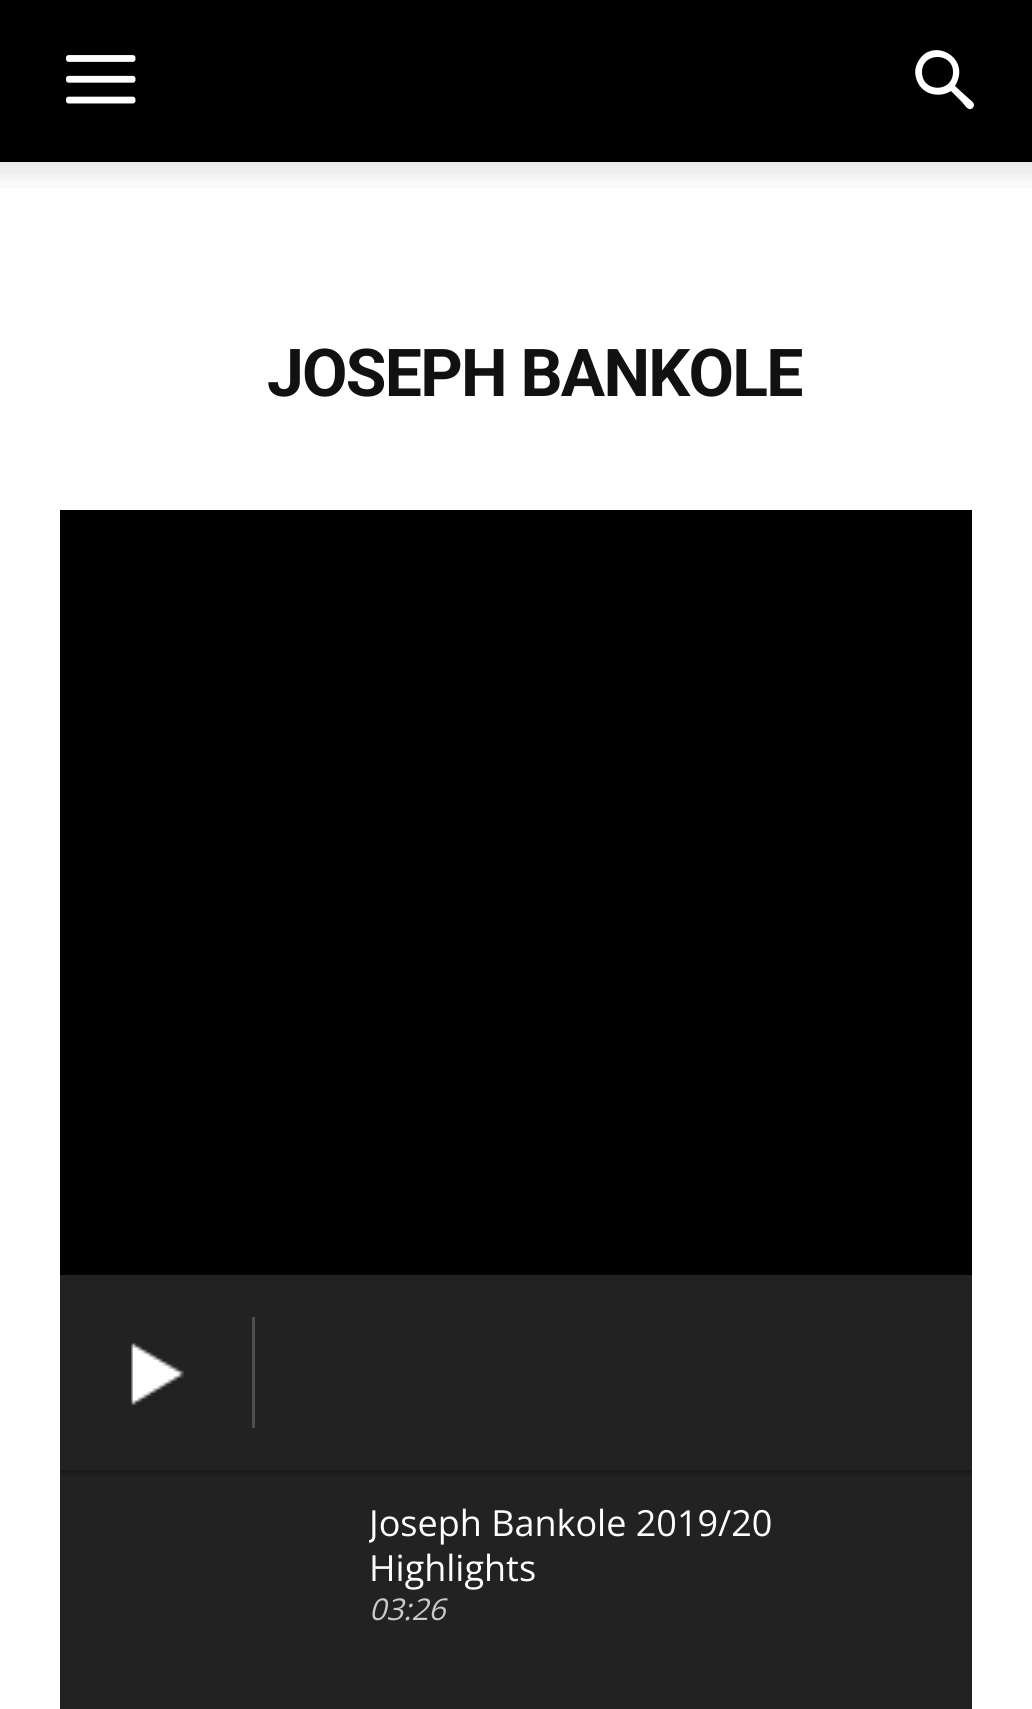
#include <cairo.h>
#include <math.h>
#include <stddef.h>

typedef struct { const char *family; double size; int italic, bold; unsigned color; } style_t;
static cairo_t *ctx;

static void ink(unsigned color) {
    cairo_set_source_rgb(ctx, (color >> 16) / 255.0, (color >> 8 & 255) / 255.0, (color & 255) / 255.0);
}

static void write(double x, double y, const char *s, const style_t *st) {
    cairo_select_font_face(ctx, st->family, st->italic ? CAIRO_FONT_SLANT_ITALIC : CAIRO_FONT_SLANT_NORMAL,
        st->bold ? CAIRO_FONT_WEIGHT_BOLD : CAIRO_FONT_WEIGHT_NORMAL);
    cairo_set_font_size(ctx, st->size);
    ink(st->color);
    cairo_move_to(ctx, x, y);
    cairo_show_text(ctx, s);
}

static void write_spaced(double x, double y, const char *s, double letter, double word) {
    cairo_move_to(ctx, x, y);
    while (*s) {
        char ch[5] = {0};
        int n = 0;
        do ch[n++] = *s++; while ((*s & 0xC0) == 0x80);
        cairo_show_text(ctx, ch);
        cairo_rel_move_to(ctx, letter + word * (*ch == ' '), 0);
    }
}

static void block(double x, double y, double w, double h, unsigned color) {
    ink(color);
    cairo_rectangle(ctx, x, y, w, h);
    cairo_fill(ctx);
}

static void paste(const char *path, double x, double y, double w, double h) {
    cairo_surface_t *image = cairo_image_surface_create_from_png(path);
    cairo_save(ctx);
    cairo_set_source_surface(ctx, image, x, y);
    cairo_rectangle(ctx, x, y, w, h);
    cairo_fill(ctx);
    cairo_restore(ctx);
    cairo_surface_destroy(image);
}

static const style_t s1 = {"Open Sans", 36, 0, 0, 0xffffff};
static const style_t s2 = {"Open Sans", 30, 1, 0, 0xcacaca};

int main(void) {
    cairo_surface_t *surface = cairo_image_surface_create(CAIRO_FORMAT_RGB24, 1032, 1709);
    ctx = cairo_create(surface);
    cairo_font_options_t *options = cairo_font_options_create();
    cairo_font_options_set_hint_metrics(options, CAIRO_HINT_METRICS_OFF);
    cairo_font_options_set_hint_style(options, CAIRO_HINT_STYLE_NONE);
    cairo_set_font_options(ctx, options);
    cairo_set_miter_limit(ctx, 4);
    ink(0xffffff);
    cairo_paint(ctx);
    block(0, 0, 1032, 162, 0x000000);
    paste("pic1.png", 66, 55, 70, 49);
    ink(0xffffff);
    cairo_new_path(ctx);
    cairo_move_to(ctx, 953, 72);
    cairo_curve_to(ctx, 953, 93, 922, 93, 922, 72);
    cairo_curve_to(ctx, 922, 52, 953, 52, 953, 72);
    cairo_close_path(ctx);
    cairo_move_to(ctx, 974, 105);
    cairo_curve_to(ctx, 974, 102, 969, 99, 967, 97);
    cairo_line_to(ctx, 955, 86);
    cairo_curve_to(ctx, 973, 56, 929, 35, 917, 64);
    cairo_curve_to(ctx, 914, 70, 915, 77, 918, 83);
    cairo_curve_to(ctx, 924, 95, 940, 98, 951, 91);
    cairo_line_to(ctx, 962, 102);
    cairo_curve_to(ctx, 964, 104, 967, 110, 971, 109);
    cairo_curve_to(ctx, 972, 109, 974, 107, 974, 105);
    cairo_close_path(ctx);
    cairo_fill(ctx);
    paste("pic2.png", 0, 162, 1032, 26);
    cairo_select_font_face(ctx, "Roboto", CAIRO_FONT_SLANT_NORMAL, CAIRO_FONT_WEIGHT_BOLD);
    cairo_set_font_size(ctx, 66);
    ink(0x111111);
    write_spaced(267, 396, "JOSEPH BANKOLE", -1.75, 0);
    block(60, 510, 912, 765, 0x000000);
    block(60, 1275, 912, 434, 0x222222);
    paste("pic3.png", 131, 1343, 53, 62);
    block(252, 1317, 3, 111, 0x4e4e4e);
    paste("pic4.png", 60, 1470, 912, 6);
    cairo_save(ctx);
    cairo_rectangle(ctx, 369, 1500, 513, 90);
    cairo_clip(ctx);
    write(369, 1536, "Joseph Bankole 2019/20", &s1);
    cairo_restore(ctx);
    write(369, 1581, "Highlights", &s1);
    write(369, 1620, "03:26", &s2);
    cairo_surface_write_to_png(surface, "screenshot.png");
    cairo_font_options_destroy(options);
    cairo_destroy(ctx);
    cairo_surface_destroy(surface);
    return 0;
}
